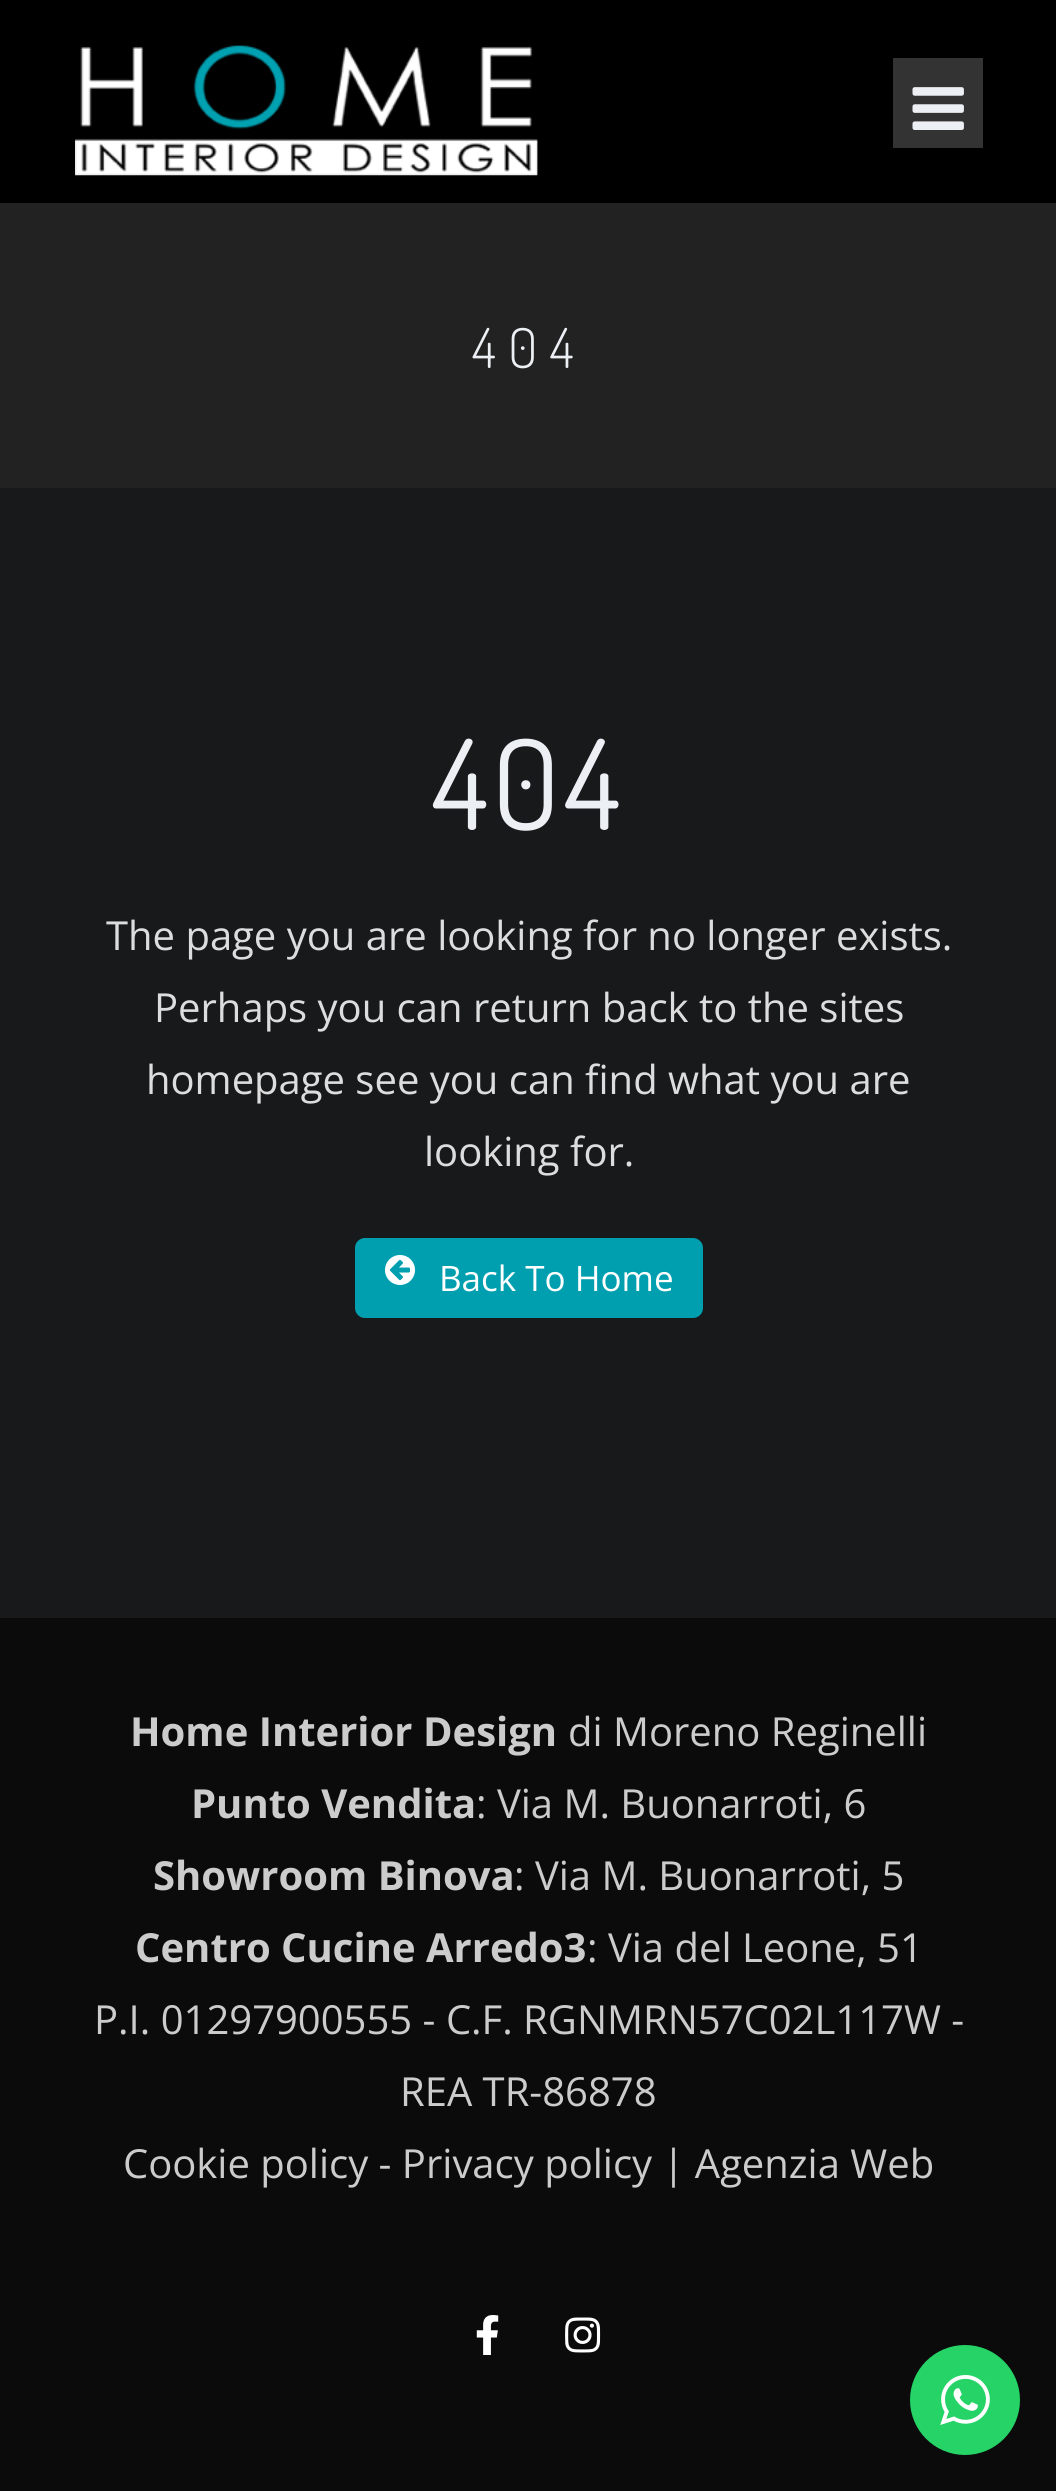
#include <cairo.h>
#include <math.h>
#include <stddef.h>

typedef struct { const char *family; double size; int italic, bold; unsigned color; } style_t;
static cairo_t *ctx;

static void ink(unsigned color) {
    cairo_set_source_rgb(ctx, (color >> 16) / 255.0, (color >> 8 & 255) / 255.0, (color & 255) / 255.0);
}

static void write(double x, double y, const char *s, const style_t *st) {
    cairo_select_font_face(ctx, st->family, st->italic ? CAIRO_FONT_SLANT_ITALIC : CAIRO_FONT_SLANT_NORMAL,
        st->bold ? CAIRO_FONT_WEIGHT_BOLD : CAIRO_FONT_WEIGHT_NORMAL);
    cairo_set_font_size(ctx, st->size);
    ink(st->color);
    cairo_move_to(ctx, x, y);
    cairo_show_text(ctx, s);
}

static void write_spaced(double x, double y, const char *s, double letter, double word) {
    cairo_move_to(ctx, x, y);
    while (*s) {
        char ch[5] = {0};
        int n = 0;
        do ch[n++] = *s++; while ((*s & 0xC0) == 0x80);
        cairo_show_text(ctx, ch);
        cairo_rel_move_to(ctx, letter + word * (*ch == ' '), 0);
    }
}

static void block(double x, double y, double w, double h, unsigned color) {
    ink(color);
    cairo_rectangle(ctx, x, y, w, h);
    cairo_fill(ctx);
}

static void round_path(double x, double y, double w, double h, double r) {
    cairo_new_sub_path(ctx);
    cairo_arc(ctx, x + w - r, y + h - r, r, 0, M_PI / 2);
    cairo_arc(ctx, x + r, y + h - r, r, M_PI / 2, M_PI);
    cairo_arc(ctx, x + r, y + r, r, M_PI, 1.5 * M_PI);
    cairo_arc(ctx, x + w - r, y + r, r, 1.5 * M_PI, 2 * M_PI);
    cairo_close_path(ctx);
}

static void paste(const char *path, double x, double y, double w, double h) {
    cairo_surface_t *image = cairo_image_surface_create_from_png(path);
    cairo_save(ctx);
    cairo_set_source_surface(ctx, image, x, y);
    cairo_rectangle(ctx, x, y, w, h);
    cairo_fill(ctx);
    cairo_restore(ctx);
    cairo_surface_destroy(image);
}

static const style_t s1 = {"Open Sans", 40, 0, 0, 0xdddddd};
static const style_t s2 = {"Open Sans", 35, 0, 0, 0xffffff};
static const style_t s3 = {"Open Sans", 40, 0, 1, 0xcccccc};
static const style_t s4 = {"Open Sans", 40, 0, 0, 0xcccccc};

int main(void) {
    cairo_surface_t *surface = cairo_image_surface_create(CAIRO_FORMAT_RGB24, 1056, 2491);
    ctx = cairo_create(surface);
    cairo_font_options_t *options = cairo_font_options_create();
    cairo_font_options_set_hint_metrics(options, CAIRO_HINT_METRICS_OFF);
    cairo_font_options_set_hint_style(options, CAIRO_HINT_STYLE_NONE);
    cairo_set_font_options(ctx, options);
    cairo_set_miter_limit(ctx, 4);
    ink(0x000000);
    cairo_paint(ctx);
    paste("pic1.png", 75, 45, 463, 131);
    block(893, 58, 90, 90, 0x333333);
    paste("pic2.png", 912, 87, 52, 43);
    block(0, 203, 1056, 285, 0x222222);
    cairo_select_font_face(ctx, "Dosis Light", CAIRO_FONT_SLANT_NORMAL, CAIRO_FONT_WEIGHT_NORMAL);
    cairo_set_font_size(ctx, 55);
    ink(0xeceff3);
    write_spaced(472, 368, "404", 12.5, 0);
    block(0, 488, 1056, 1130, 0x18191b);
    cairo_select_font_face(ctx, "Dosis", CAIRO_FONT_SLANT_NORMAL, CAIRO_FONT_WEIGHT_NORMAL);
    cairo_set_font_size(ctx, 125);
    ink(0xeceff3);
    write_spaced(432, 830, "404", 5, 0);
    write(106, 950, "The page you are looking for no longer exists.", &s1);
    write(154, 1022, "Perhaps you can return back to the sites", &s1);
    write(146, 1094, "homepage see you can find what you are", &s1);
    write(424, 1166, "looking for.", &s1);
    ink(0x009faf);
    round_path(355, 1238, 348, 80, 10);
    cairo_fill(ctx);
    paste("pic3.png", 385, 1255, 30, 30);
    write(439, 1291, "Back To Home", &s2);
    block(0, 1618, 1056, 873, 0x0b0b0b);
    write(130, 1746, "Home Interior Design", &s3);
    write(568, 1746, "di Moreno Reginelli", &s4);
    write(191, 1818, "Punto Vendita", &s3);
    write(476, 1818, ": Via M. Buonarroti, 6", &s4);
    write(153, 1890, "Showroom Binova", &s3);
    write(514, 1890, ": Via M. Buonarroti, 5", &s4);
    write(135, 1962, "Centro Cucine Arredo3", &s3);
    write(587, 1962, ": Via del Leone, 51", &s4);
    write(94, 2034, "P.I. 01297900555 - C.F. RGNMRN57C02L117W -", &s4);
    write(400, 2106, "REA TR-86878", &s4);
    write(123, 2178, "Cookie policy - Privacy policy | Agenzia Web", &s4);
    paste("pic4.png", 476, 2315, 23, 40);
    paste("pic5.png", 565, 2317, 36, 36);
    ink(0x25d366);
    cairo_arc(ctx, 965, 2400, 55, 0, 2 * M_PI);
    cairo_fill(ctx);
    paste("pic6.png", 940, 2375, 50, 50);
    cairo_surface_write_to_png(surface, "screenshot.png");
    cairo_font_options_destroy(options);
    cairo_destroy(ctx);
    cairo_surface_destroy(surface);
    return 0;
}
